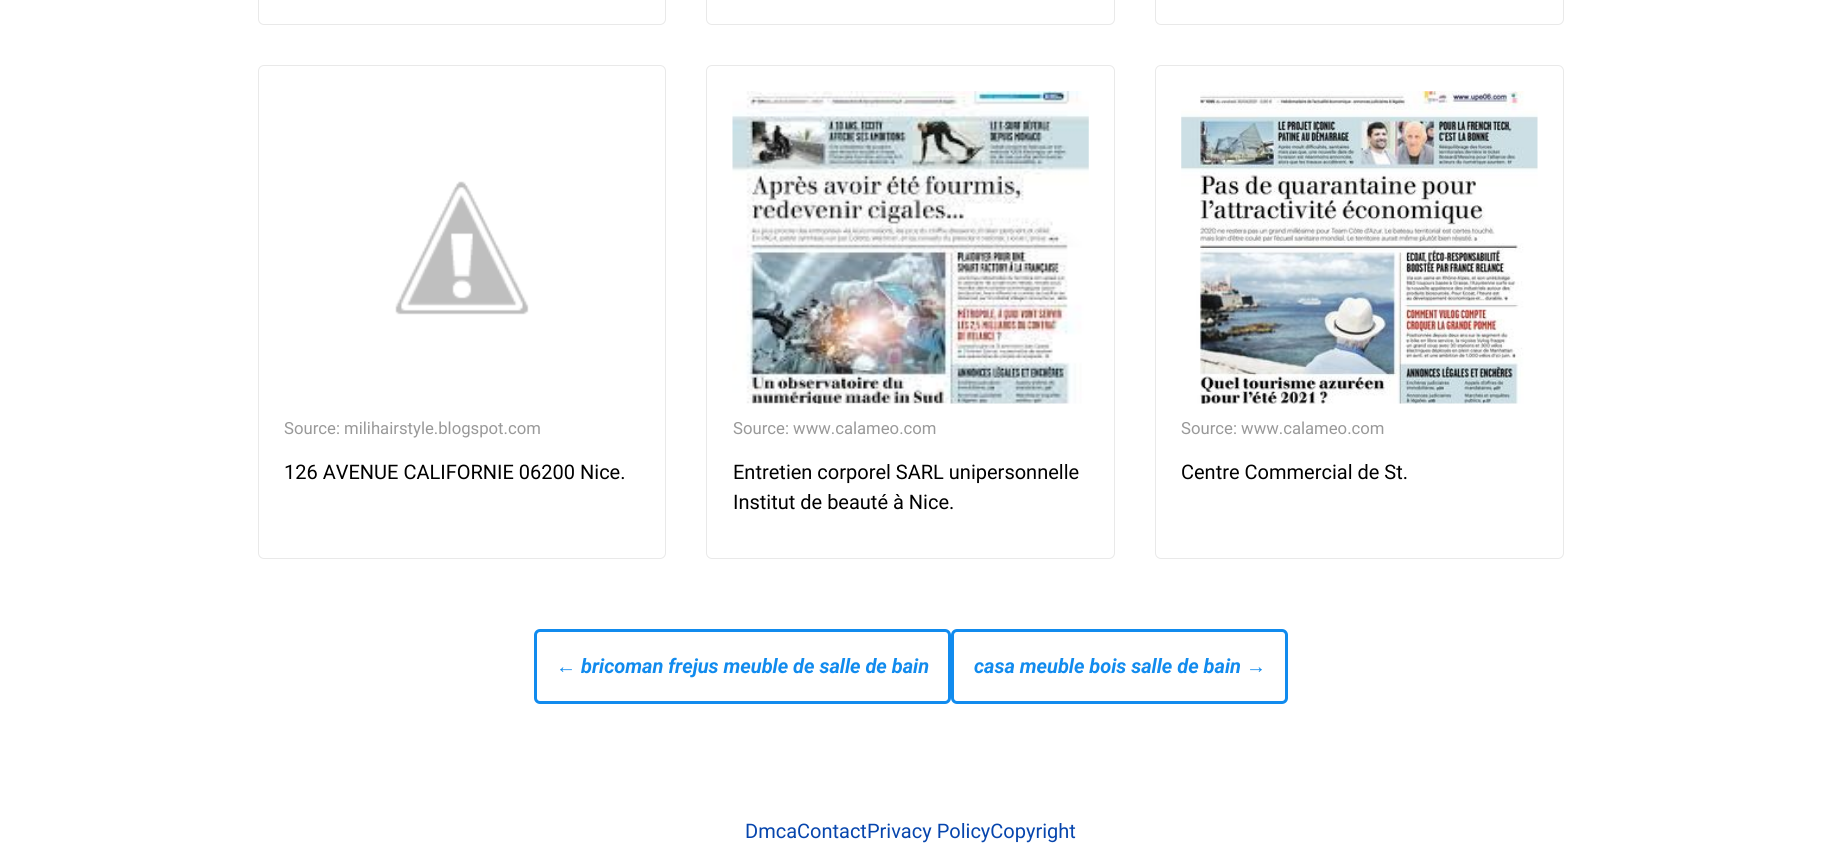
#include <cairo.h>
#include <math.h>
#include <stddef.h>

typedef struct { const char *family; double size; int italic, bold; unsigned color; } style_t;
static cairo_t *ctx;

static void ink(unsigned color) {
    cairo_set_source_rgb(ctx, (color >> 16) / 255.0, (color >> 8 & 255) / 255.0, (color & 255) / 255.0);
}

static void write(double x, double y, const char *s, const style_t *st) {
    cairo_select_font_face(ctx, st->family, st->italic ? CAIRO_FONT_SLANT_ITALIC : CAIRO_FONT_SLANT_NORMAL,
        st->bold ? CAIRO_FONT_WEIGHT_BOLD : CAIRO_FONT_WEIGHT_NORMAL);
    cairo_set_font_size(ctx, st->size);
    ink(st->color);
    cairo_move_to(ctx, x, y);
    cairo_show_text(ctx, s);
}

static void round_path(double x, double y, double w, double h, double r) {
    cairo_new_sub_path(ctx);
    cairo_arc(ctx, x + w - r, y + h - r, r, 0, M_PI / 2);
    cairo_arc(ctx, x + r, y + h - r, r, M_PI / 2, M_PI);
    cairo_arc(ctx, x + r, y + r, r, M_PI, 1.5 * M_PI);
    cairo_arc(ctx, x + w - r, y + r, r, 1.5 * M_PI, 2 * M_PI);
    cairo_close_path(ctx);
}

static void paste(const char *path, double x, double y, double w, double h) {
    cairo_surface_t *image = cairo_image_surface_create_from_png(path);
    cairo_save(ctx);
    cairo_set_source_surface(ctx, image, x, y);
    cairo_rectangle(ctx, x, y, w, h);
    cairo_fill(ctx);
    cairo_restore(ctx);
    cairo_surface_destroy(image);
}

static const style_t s1 = {"Roboto", 16.7, 0, 0, 0x999999};
static const style_t s2 = {"Roboto", 20, 0, 0, 0x000000};
static const style_t s3 = {"Liberation Sans", 20, 1, 1, 0x118bee};
static const style_t s4 = {"Roboto", 20, 1, 1, 0x118bee};
static const style_t s5 = {"Roboto", 20, 0, 0, 0x0645ad};

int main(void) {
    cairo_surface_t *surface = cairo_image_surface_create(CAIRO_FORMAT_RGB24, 1821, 866);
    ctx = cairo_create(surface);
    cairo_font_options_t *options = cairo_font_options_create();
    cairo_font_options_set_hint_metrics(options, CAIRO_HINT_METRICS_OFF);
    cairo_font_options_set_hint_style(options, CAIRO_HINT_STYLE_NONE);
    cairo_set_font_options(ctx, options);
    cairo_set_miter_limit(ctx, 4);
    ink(0xffffff);
    cairo_paint(ctx);
    round_path(258.5, -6.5, 407, 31, 5.5);
    ink(0xe9e9e9);
    cairo_set_line_width(ctx, 1);
    cairo_stroke(ctx);
    round_path(706.5, -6.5, 408, 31, 5.5);
    cairo_stroke(ctx);
    round_path(1155.5, -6.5, 408, 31, 5.5);
    cairo_stroke(ctx);
    round_path(258.5, 65.5, 407, 493, 5.5);
    cairo_stroke(ctx);
    paste("pic1.png", 395, 181, 134, 134);
    write(284, 434, "Source: milihairstyle.blogspot.com", &s1);
    write(284, 479, "126 AVENUE CALIFORNIE 06200 Nice.", &s2);
    round_path(706.5, 65.5, 408, 493, 5.5);
    ink(0xe9e9e9);
    cairo_stroke(ctx);
    paste("pic2.png", 732, 91, 357, 313);
    write(733, 434, "Source: www.calameo.com", &s1);
    write(733, 479, "Entretien corporel SARL unipersonnelle", &s2);
    write(733, 509, "Institut de beauté à Nice.", &s2);
    round_path(1155.5, 65.5, 408, 493, 5.5);
    ink(0xe9e9e9);
    cairo_stroke(ctx);
    paste("pic3.png", 1181, 91, 357, 313);
    write(1181, 434, "Source: www.calameo.com", &s1);
    write(1181, 479, "Centre Commercial de St.", &s2);
    round_path(535.5, 630.5, 414, 72, 4.5);
    ink(0x118bee);
    cairo_set_line_width(ctx, 3);
    cairo_stroke(ctx);
    write(556, 673, "←", &s3);
    write(581, 673, "bricoman frejus meuble de salle de bain", &s4);
    round_path(952.5, 630.5, 334, 72, 4.5);
    cairo_stroke(ctx);
    write(974, 673, "casa meuble bois salle de bain", &s4);
    write(1246, 673, "→", &s3);
    write(745, 838, "DmcaContactPrivacy PolicyCopyright", &s5);
    cairo_surface_write_to_png(surface, "screenshot.png");
    cairo_font_options_destroy(options);
    cairo_destroy(ctx);
    cairo_surface_destroy(surface);
    return 0;
}
